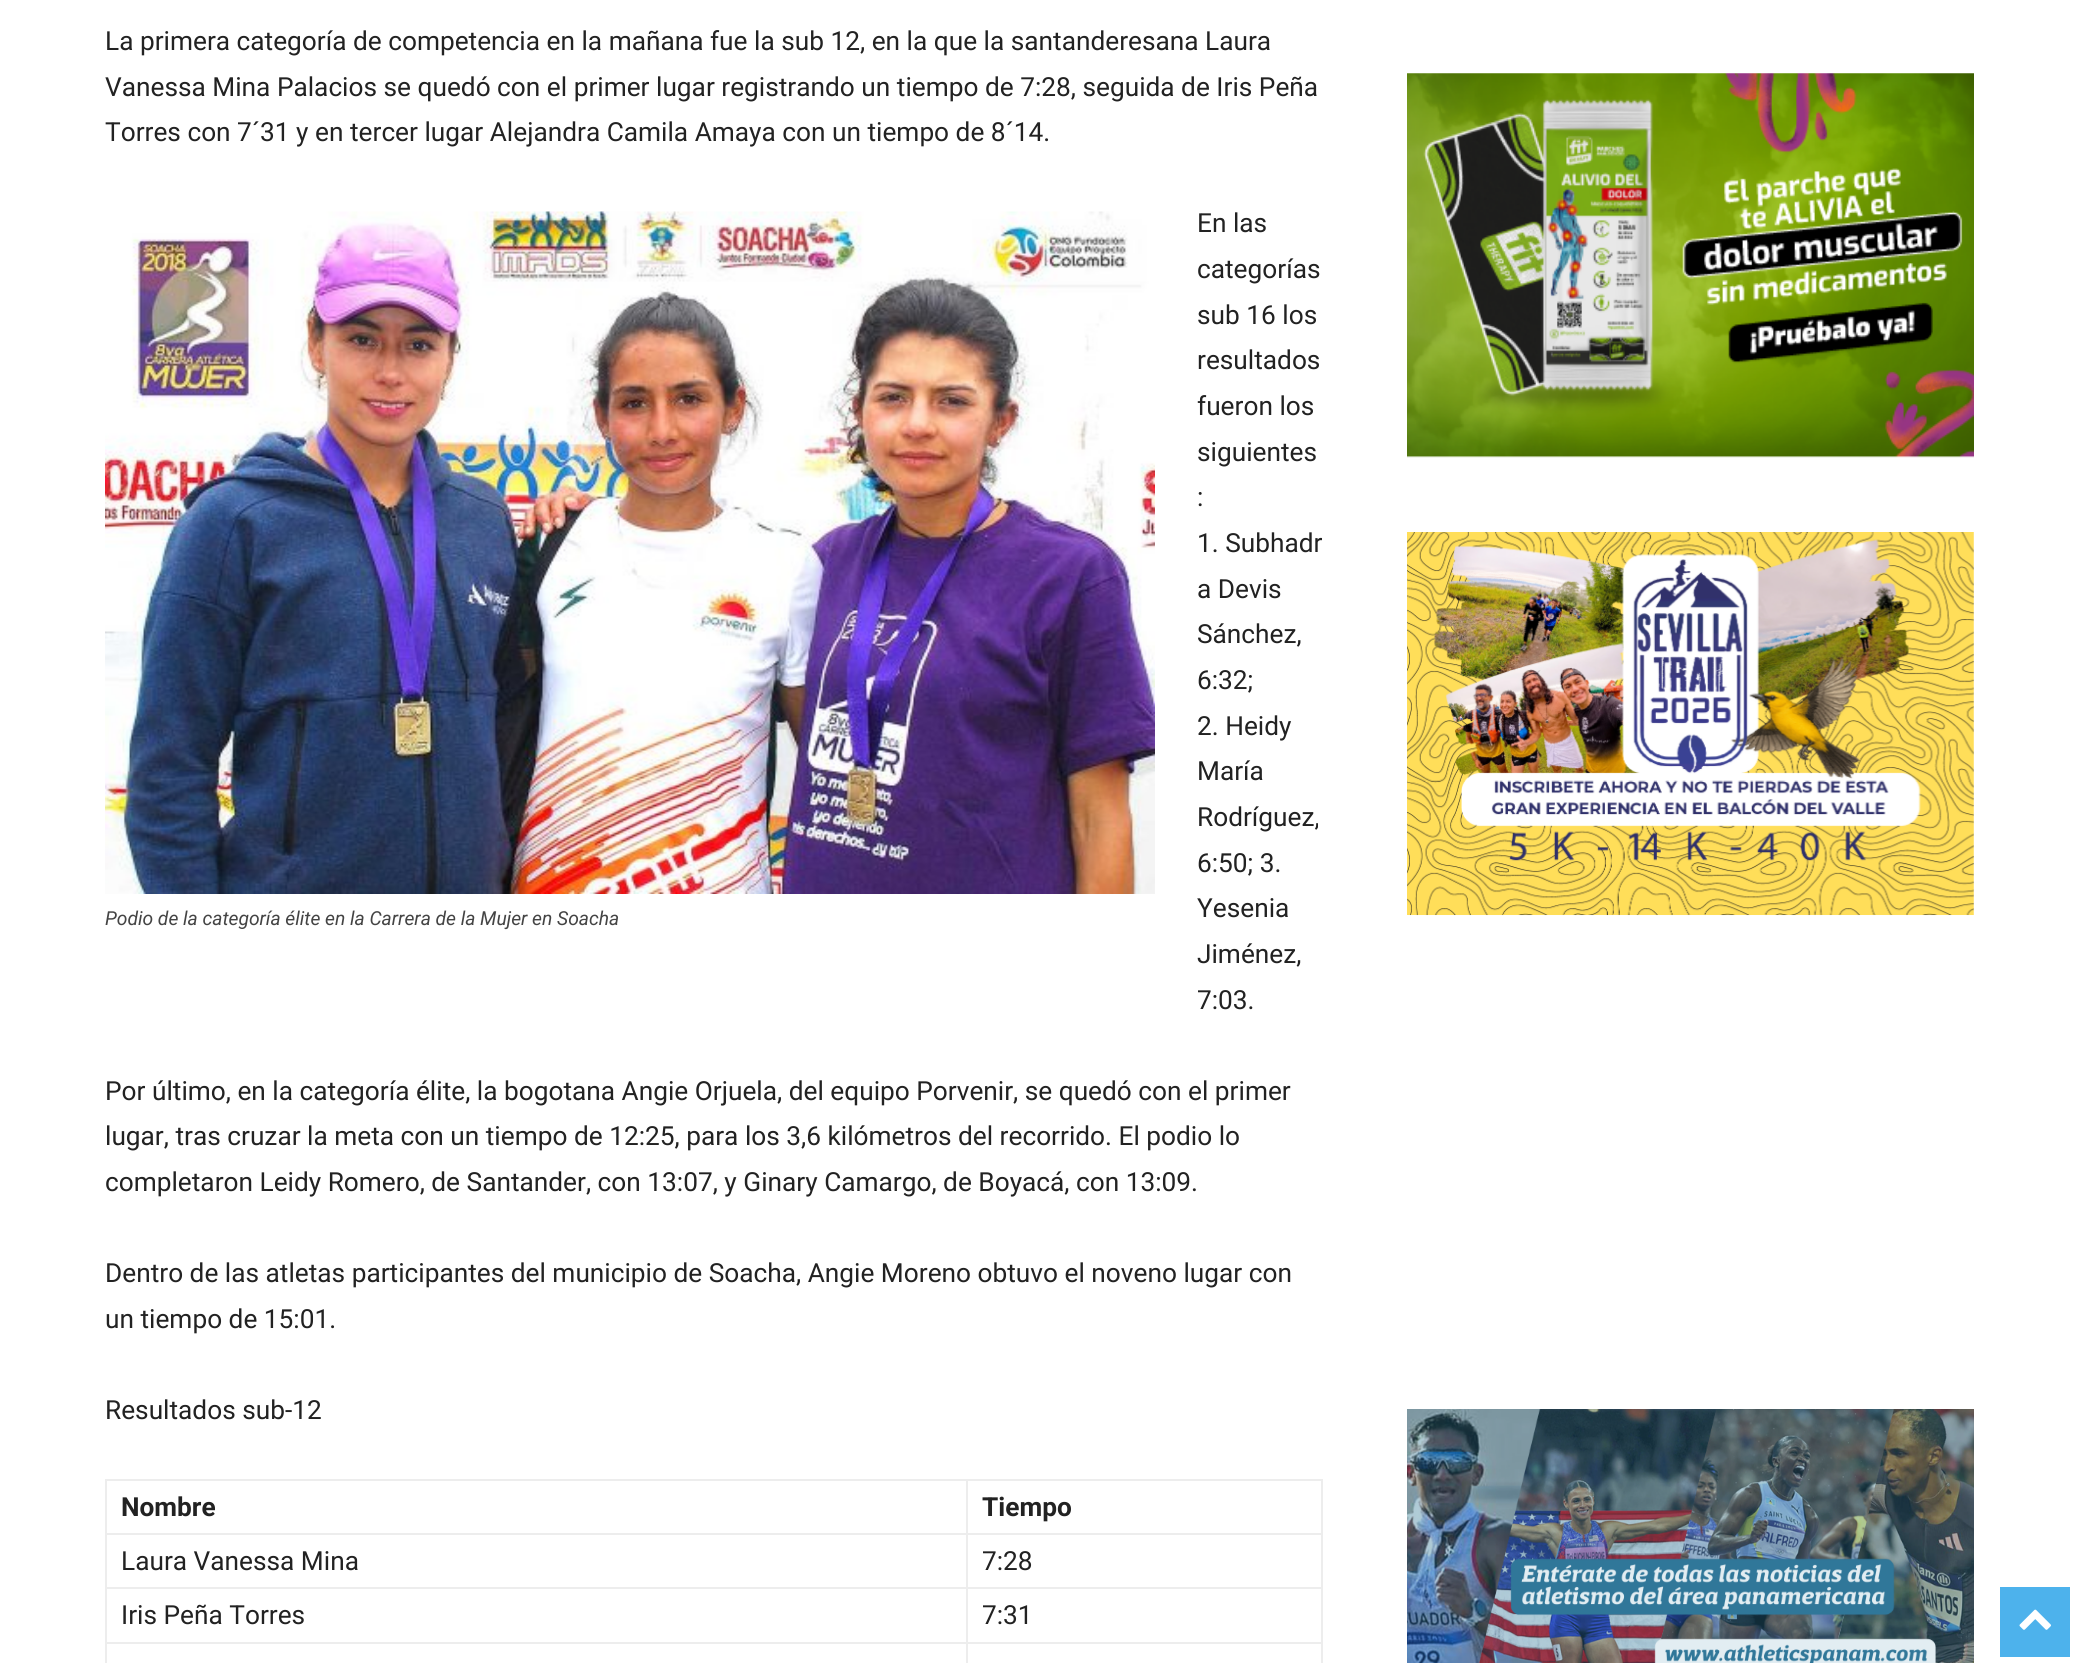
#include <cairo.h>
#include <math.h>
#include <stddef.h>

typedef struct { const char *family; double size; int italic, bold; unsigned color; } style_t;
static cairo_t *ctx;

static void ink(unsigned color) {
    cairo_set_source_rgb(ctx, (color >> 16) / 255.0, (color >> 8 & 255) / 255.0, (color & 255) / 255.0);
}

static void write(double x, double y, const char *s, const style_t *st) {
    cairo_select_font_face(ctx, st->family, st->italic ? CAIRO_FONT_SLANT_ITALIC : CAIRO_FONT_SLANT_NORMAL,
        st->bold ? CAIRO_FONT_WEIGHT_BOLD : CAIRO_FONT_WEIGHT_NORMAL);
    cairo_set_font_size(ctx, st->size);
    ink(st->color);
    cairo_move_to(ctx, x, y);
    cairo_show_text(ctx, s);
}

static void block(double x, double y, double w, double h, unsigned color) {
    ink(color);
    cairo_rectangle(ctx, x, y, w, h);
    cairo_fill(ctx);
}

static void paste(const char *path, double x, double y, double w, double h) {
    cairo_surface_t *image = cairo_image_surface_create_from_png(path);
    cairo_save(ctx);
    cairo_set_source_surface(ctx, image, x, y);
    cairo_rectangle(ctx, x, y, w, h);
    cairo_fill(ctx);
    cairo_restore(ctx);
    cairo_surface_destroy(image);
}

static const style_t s1 = {"Roboto", 26.25, 0, 0, 0x222222};
static const style_t s2 = {"Roboto", 19.25, 1, 0, 0x444444};
static const style_t s3 = {"Roboto", 26.25, 0, 1, 0x222222};

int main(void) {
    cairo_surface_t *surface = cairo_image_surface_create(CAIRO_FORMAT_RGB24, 2079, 1663);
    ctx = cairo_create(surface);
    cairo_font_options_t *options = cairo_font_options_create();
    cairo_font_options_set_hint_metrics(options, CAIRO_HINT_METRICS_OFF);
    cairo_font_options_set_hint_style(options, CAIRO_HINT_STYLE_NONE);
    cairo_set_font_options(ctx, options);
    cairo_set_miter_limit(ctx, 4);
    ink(0xffffff);
    cairo_paint(ctx);
    write(105, 50, "La primera categoría de competencia en la mañana fue la sub 12, en la que la santanderesana Laura", &s1);
    write(105, 96, "Vanessa Mina Palacios se quedó con el primer lugar registrando un tiempo de 7:28, seguida de Iris Peña", &s1);
    write(105, 141, "Torres con 7´31 y en tercer lugar Alejandra Camila Amaya con un tiempo de 8´14.", &s1);
    paste("pic1.png", 105, 211, 1050, 683);
    write(105, 925, "Podio de la categoría élite en la Carrera de la Mujer en Soacha", &s2);
    write(1197, 232, "En las", &s1);
    write(1197, 278, "categorías", &s1);
    write(1197, 324, "sub 16 los", &s1);
    write(1197, 369, "resultados", &s1);
    write(1197, 415, "fueron los", &s1);
    write(1197, 461, "siguientes", &s1);
    write(1197, 506, ":", &s1);
    write(1197, 552, "1. Subhadr", &s1);
    write(1197, 598, "a Devis", &s1);
    write(1197, 643, "Sánchez,", &s1);
    write(1197, 689, "6:32;", &s1);
    write(1197, 735, "2. Heidy", &s1);
    write(1197, 780, "María", &s1);
    write(1197, 826, "Rodríguez,", &s1);
    write(1197, 872, "6:50; 3.", &s1);
    write(1197, 917, "Yesenia", &s1);
    write(1197, 963, "Jiménez,", &s1);
    write(1197, 1009, "7:03.", &s1);
    write(105, 1100, "Por último, en la categoría élite, la bogotana Angie Orjuela, del equipo Porvenir, se quedó con el primer", &s1);
    write(105, 1145, "lugar, tras cruzar la meta con un tiempo de 12:25, para los 3,6 kilómetros del recorrido. El podio lo", &s1);
    write(105, 1191, "completaron Leidy Romero, de Santander, con 13:07, y Ginary Camargo, de Boyacá, con 13:09.", &s1);
    write(105, 1282, "Dentro de las atletas participantes del municipio de Soacha, Angie Moreno obtuvo el noveno lugar con", &s1);
    write(105, 1328, "un tiempo de 15:01.", &s1);
    write(105, 1419, "Resultados sub-12", &s1);
    block(966, 1479, 357, 2, 0xededed);
    block(966, 1533, 357, 2, 0xededed);
    block(966, 1587, 357, 2, 0xededed);
    block(966, 1642, 357, 2, 0xededed);
    block(966, 1642, 2, 21, 0xededed);
    block(105, 1642, 863, 2, 0xededed);
    block(966, 1587, 2, 56, 0xededed);
    block(105, 1587, 863, 2, 0xededed);
    block(966, 1533, 2, 56, 0xededed);
    block(105, 1533, 863, 2, 0xededed);
    block(966, 1479, 2, 56, 0xededed);
    block(105, 1479, 863, 2, 0xededed);
    block(105, 1642, 2, 21, 0xededed);
    block(105, 1587, 2, 56, 0xededed);
    block(105, 1533, 2, 56, 0xededed);
    block(105, 1479, 2, 56, 0xededed);
    write(121, 1516, "Nombre", &s3);
    block(1321, 1642, 2, 21, 0xededed);
    block(1321, 1587, 2, 56, 0xededed);
    block(1321, 1533, 2, 56, 0xededed);
    block(1321, 1479, 2, 56, 0xededed);
    write(982, 1516, "Tiempo", &s3);
    write(121, 1570, "Laura Vanessa Mina", &s1);
    write(982, 1570, "7:28", &s1);
    write(121, 1624, "Iris Peña Torres", &s1);
    write(982, 1624, "7:31", &s1);
    paste("pic2.png", 1407, 73, 567, 385);
    paste("pic3.png", 1407, 532, 567, 384);
    paste("pic4.png", 1407, 1409, 567, 254);
    block(2000, 1587, 70, 70, 0x4db2ec);
    paste("pic5.png", 2019, 1609, 32, 21);
    cairo_surface_write_to_png(surface, "screenshot.png");
    cairo_font_options_destroy(options);
    cairo_destroy(ctx);
    cairo_surface_destroy(surface);
    return 0;
}
